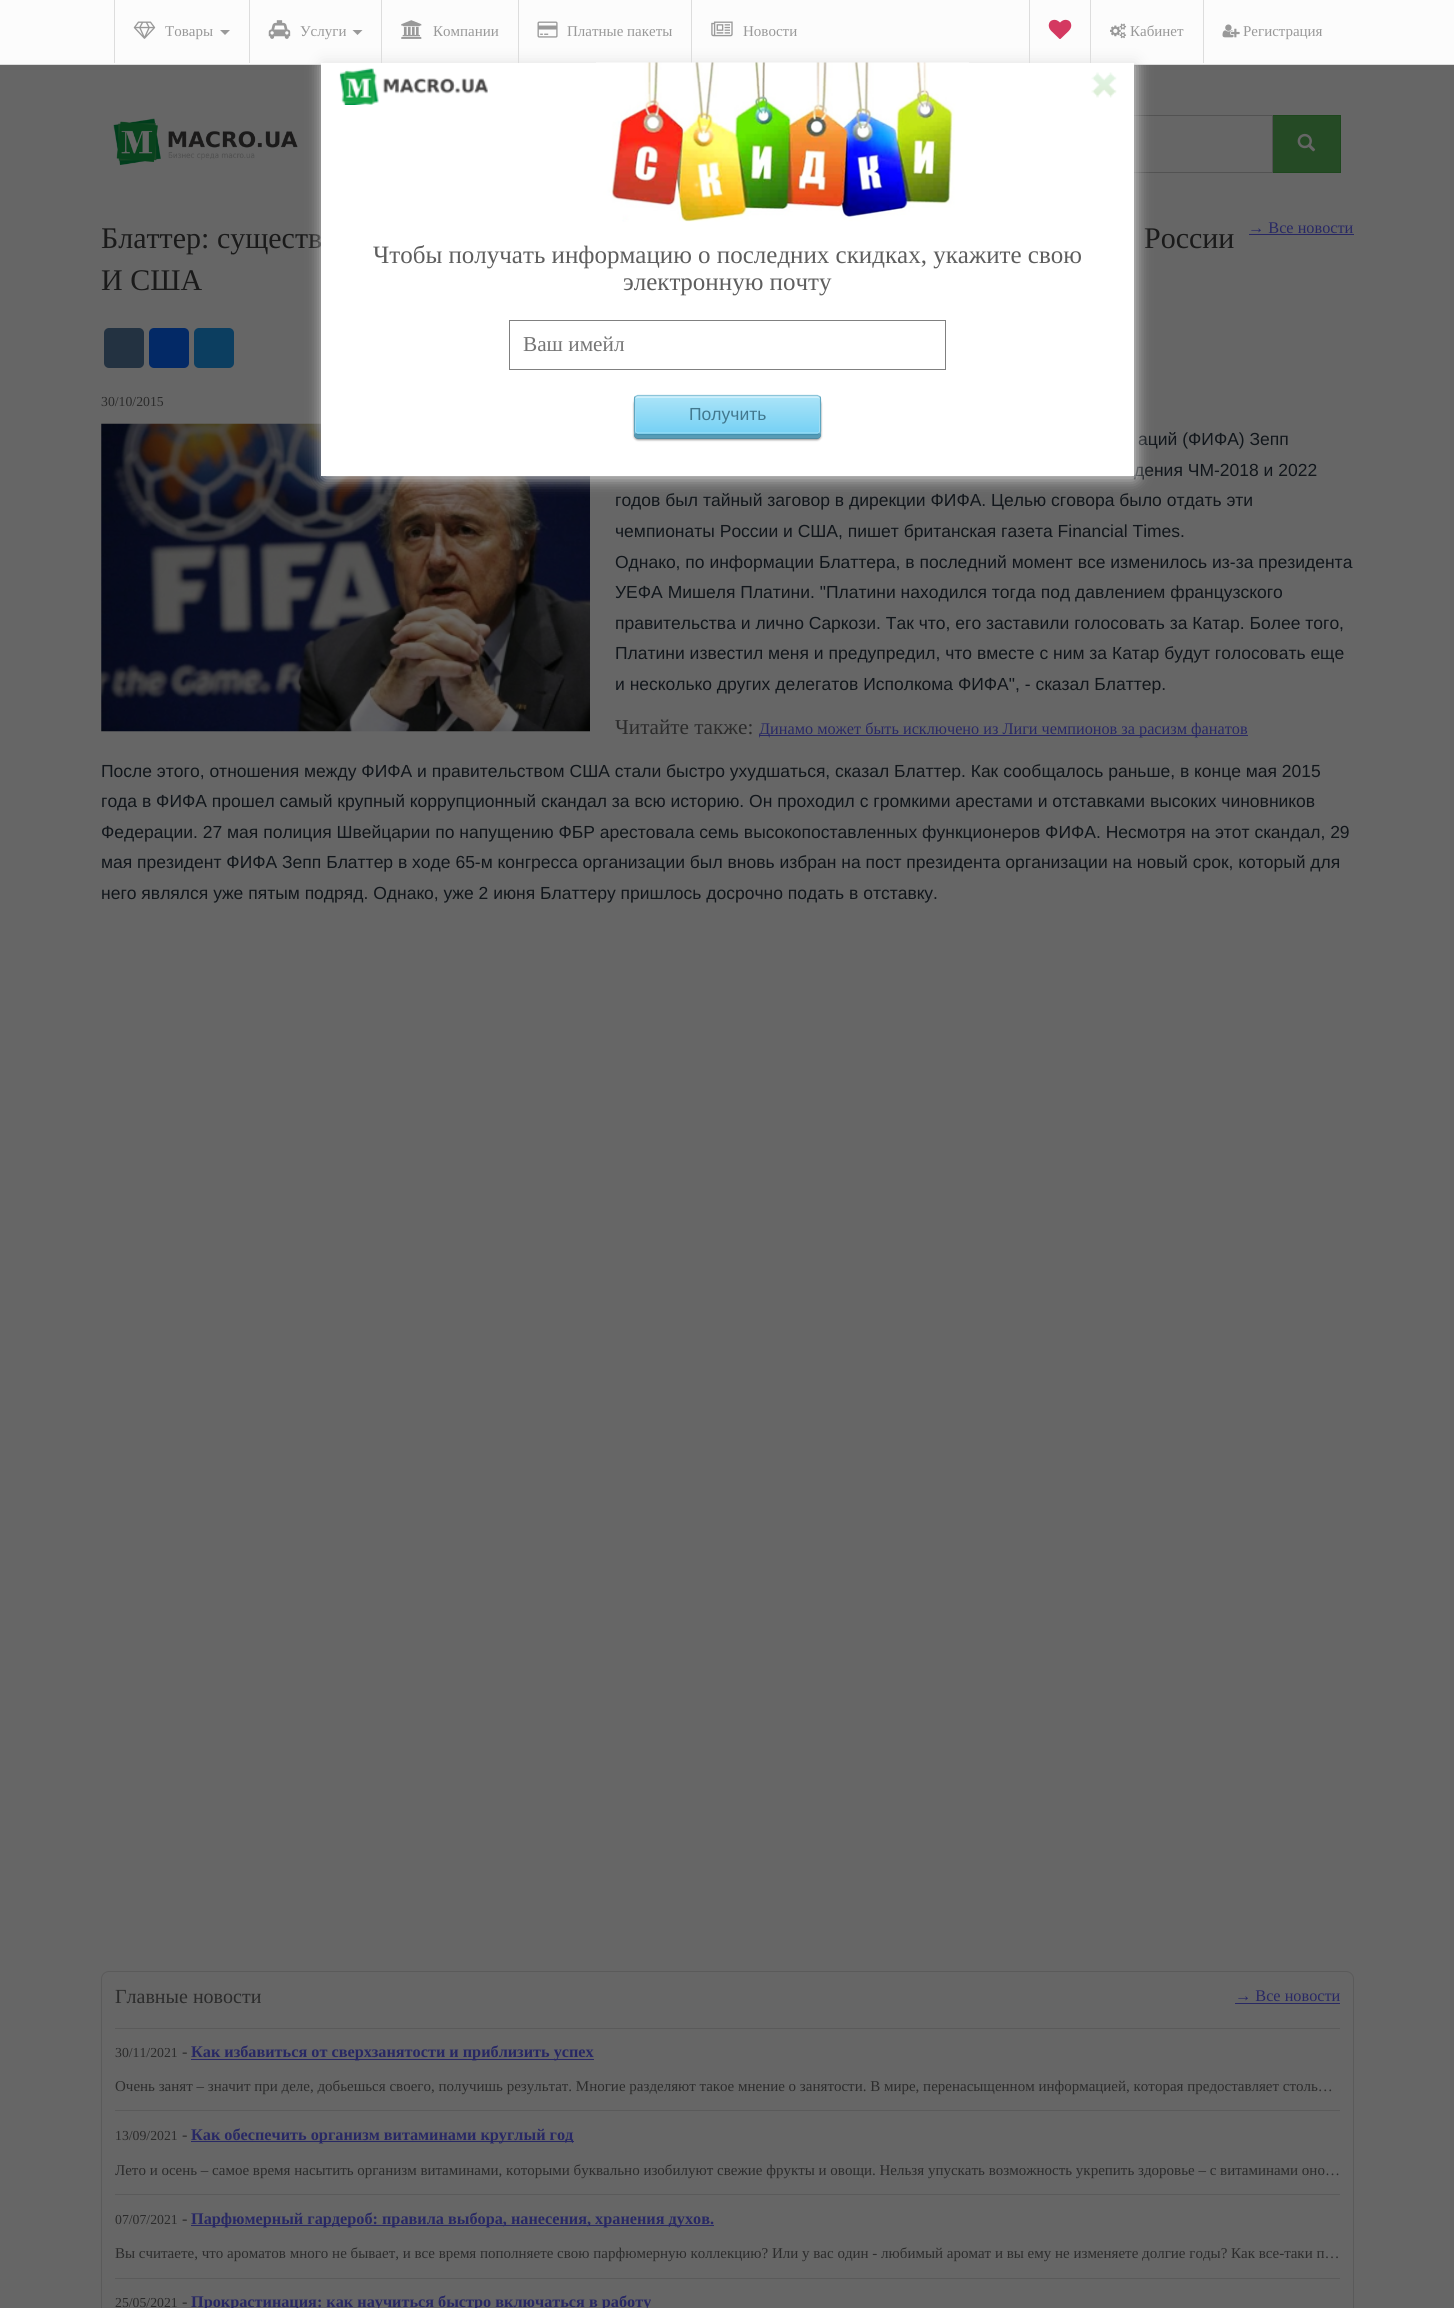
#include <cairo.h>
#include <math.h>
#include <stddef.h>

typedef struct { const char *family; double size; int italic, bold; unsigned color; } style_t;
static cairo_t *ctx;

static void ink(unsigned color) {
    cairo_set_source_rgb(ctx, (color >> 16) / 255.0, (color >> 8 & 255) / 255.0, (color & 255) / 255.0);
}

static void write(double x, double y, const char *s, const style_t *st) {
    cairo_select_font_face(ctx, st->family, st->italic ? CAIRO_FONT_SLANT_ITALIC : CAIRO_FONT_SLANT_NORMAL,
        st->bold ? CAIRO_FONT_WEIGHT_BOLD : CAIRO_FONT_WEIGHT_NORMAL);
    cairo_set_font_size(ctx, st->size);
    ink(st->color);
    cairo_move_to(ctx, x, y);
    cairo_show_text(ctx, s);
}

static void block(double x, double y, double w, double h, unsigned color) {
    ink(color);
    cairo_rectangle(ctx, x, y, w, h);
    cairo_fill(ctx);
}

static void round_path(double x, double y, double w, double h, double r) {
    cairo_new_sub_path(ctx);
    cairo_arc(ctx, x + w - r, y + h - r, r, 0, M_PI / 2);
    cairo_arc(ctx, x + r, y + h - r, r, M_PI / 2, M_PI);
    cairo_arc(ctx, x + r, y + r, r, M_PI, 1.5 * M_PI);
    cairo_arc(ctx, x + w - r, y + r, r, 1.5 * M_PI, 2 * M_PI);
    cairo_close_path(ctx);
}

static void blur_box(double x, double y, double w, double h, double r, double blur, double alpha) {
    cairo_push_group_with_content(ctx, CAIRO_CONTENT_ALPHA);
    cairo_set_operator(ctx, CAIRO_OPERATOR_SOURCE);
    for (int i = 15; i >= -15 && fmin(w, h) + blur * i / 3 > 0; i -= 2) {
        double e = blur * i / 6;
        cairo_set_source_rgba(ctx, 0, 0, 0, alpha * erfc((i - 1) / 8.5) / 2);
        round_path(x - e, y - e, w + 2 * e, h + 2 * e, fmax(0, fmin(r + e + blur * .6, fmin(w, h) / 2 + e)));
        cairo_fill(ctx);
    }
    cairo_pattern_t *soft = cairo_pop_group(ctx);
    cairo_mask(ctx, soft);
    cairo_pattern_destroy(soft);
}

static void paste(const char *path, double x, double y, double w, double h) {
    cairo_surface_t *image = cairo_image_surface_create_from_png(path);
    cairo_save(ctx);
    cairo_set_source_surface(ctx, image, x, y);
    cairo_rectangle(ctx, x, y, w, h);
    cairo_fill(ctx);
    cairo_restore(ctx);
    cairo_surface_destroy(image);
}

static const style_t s1 = {"Liberation Serif", 15, 0, 0, 0x999999};
static const style_t s2 = {"Liberation Serif", 30, 0, 0, 0x1a1a1a};
static const style_t s3 = {"Liberation Serif", 16.25, 0, 0, 0x282864};
static const style_t s4 = {"Liberation Serif", 13.75, 0, 0, 0x2b2b2b};
static const style_t s5 = {"Liberation Sans", 17.5, 0, 0, 0x11161b};
static const style_t s6 = {"Liberation Serif", 21.25, 0, 0, 0x2b2b2b};
static const style_t s7 = {"Liberation Serif", 20, 0, 0, 0x2b2b2b};
static const style_t s8 = {"Liberation Serif", 16.25, 0, 0, 0x2b2b2b};
static const style_t s9 = {"Liberation Serif", 16.25, 0, 1, 0x282864};
static const style_t s10 = {"Liberation Serif", 15, 0, 0, 0x2b2b2b};
static const style_t s11 = {"Liberation Serif", 25, 0, 0, 0x5e5e5e};
static const style_t s12 = {"Liberation Serif", 21.25, 0, 0, 0x757575};
static const style_t s13 = {"Liberation Sans", 17.5, 0, 0, 0x42788e};

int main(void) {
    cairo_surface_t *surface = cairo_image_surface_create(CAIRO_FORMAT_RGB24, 1454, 2308);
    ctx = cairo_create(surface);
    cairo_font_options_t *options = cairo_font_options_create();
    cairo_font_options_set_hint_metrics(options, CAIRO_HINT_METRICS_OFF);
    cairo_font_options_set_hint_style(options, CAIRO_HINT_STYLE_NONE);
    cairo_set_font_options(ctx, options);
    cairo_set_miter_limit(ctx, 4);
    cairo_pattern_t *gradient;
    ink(0x666666);
    cairo_paint(ctx);
    block(0, 0, 1454, 64, 0xfcfcfc);
    block(0, 64, 1454, 1, 0xdddddd);
    block(114, 0, 1, 63, 0xdddddd);
    paste("pic1.png", 133, 21, 23, 18);
    write(165, 36, "Товары", &s1);
    cairo_new_path(ctx);
    cairo_move_to(ctx, 220, 30);
    cairo_line_to(ctx, 230, 30);
    cairo_line_to(ctx, 225, 35);
    cairo_close_path(ctx);
    cairo_fill(ctx);
    block(249, 0, 1, 63, 0xdddddd);
    paste("pic2.png", 268, 20, 23, 19);
    write(300, 36, "Услуги", &s1);
    cairo_new_path(ctx);
    cairo_move_to(ctx, 352.5, 30);
    cairo_line_to(ctx, 362.5, 30);
    cairo_line_to(ctx, 357.5, 35);
    cairo_close_path(ctx);
    cairo_fill(ctx);
    block(381, 0, 1, 63, 0xdddddd);
    paste("pic3.png", 401, 20, 21, 19);
    write(433, 36, "Компании", &s1);
    block(518, 0, 1, 63, 0xdddddd);
    paste("pic4.png", 537, 21, 21, 17);
    write(567, 36, "Платные пакеты", &s1);
    block(691, 0, 1, 63, 0xdddddd);
    paste("pic5.png", 711, 21, 22, 16);
    write(743, 36, "Новости", &s1);
    block(1029, 0, 1, 64, 0xdddddd);
    paste("pic6.png", 1048, 19, 24, 20);
    block(1090, 0, 1, 63, 0xdddddd);
    paste("pic7.png", 1110, 23, 17, 16);
    write(1130, 36, "Кабинет", &s1);
    block(1203, 0, 1, 63, 0xdddddd);
    paste("pic8.png", 1222, 24, 18, 14);
    write(1243, 36, "Регистрация", &s1);
    paste("pic9.png", 113, 118, 185, 47);
    block(1273, 116, 67, 56, 0x254a25);
    cairo_rectangle(ctx, 1271.5, 115.5, 69, 57);
    ink(0x1e461e);
    cairo_set_line_width(ctx, 1);
    cairo_stroke(ctx);
    block(1271, 116, 1, 56, 0x666666);
    cairo_rectangle(ctx, 323.5, 115.5, 949, 57);
    ink(0x525252);
    cairo_stroke(ctx);
    paste("pic10.png", 1297, 133, 19, 19);
    write(101, 248, "Блаттер: существ", &s2);
    write(1144, 248, "России", &s2);
    write(101, 290, "И США", &s2);
    write(1248, 233, "→ Все новости", &s3);
    block(1249, 234, 105, 1, 0x282864);
    ink(0x233241);
    round_path(104, 328, 40, 40, 5);
    cairo_fill(ctx);
    ink(0x032966);
    round_path(149, 328, 40, 40, 5);
    cairo_fill(ctx);
    ink(0x0c3e60);
    round_path(194, 328, 40, 40, 5);
    cairo_fill(ctx);
    write(101, 406, "30/10/2015", &s4);
    paste("pic11.png", 101, 423, 489, 309);
    write(1138, 445, "аций (ФИФА) Зепп", &s5);
    write(1134, 476, "дения ЧМ-2018 и 2022", &s5);
    write(615, 506, "годов был тайный заговор в дирекции ФИФА. Целью сговора было отдать эти", &s5);
    write(615, 537, "чемпионаты России и США, пишет британская газета Financial Times.", &s5);
    write(615, 568, "Однако, по информации Блаттера, в последний момент все изменилось из-за президента", &s5);
    write(615, 598, "УЕФА Мишеля Платини. \"Платини находился тогда под давлением французского", &s5);
    write(615, 629, "правительства и лично Саркози. Так что, его заставили голосовать за Катар. Более того,", &s5);
    write(615, 659, "Платини известил меня и предупредил, что вместе с ним за Катар будут голосовать еще", &s5);
    write(615, 690, "и несколько других делегатов Исполкома ФИФА\", - сказал Блаттер.", &s5);
    write(615, 734, "Читайте также:", &s6);
    block(759, 735, 489, 1, 0x282864);
    write(759, 734, "Динамо может быть исключено из Лиги чемпионов за расизм фанатов", &s3);
    write(101, 777, "После этого, отношения между ФИФА и правительством США стали быстро ухудшаться, сказал Блаттер. Как сообщалось раньше, в конце мая 2015", &s5);
    write(101, 807, "года в ФИФА прошел самый крупный коррупционный скандал за всю историю. Он проходил с громкими арестами и отставками высоких чиновников", &s5);
    write(101, 838, "Федерации. 27 мая полиция Швейцарии по напущению ФБР арестовала семь высокопоставленных функционеров ФИФА. Несмотря на этот скандал, 29", &s5);
    write(101, 868, "мая президент ФИФА Зепп Блаттер в ходе 65-м конгресса организации был вновь избран на пост президента организации на новый срок, который для", &s5);
    write(101, 899, "него являлся уже пятым подряд. Однако, уже 2 июня Блаттеру пришлось досрочно подать в отставку.", &s5);
    round_path(101.5, 1971.5, 1252, 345, 7.5);
    ink(0x5a5a5a);
    cairo_stroke(ctx);
    write(115, 2003, "Главные новости", &s7);
    write(1235, 2001, "→ Все новости", &s3);
    block(1235, 2003, 105, 1, 0x282864);
    block(115, 2028, 1225, 1, 0x5a5a5a);
    write(115, 2057, "30/11/2021", &s4);
    write(182, 2057, "-", &s8);
    block(191, 2059, 403, 1, 0x282864);
    write(191, 2057, "Как избавиться от сверхзанятости и приблизить успех", &s9);
    write(115, 2091, "Очень занят – значит при деле, добьешься своего, получишь результат. Многие разделяют такое мнение о занятости. В мире, перенасыщенном информацией, которая предоставляет столь…", &s10);
    block(115, 2110, 1225, 1, 0x5a5a5a);
    write(115, 2140, "13/09/2021", &s4);
    write(182, 2140, "-", &s8);
    block(191, 2141, 383, 1, 0x282864);
    write(191, 2140, "Как обеспечить организм витаминами круглый год", &s9);
    write(115, 2175, "Лето и осень – самое время насытить организм витаминами, которыми буквально изобилуют свежие фрукты и овощи. Нельзя упускать возможность укрепить здоровье – с витаминами оно…", &s10);
    block(115, 2194, 1225, 1, 0x5a5a5a);
    write(115, 2224, "07/07/2021", &s4);
    write(182, 2224, "-", &s8);
    block(191, 2225, 523, 1, 0x282864);
    write(191, 2224, "Парфюмерный гардероб: правила выбора, нанесения, хранения духов.", &s9);
    write(115, 2258, "Вы считаете, что ароматов много не бывает, и все время пополняете свою парфюмерную коллекцию? Или у вас один - любимый аромат и вы ему не изменяете долгие годы? Как все-таки п…", &s10);
    block(115, 2278, 1225, 1, 0x5a5a5a);
    write(115, 2307, "25/05/2021", &s4);
    write(182, 2307, "-", &s8);
    write(191, 2307, "Прокрастинация: как научиться быстро включаться в работу", &s9);
    ink(0xdddddd);
    blur_box(323, 64, 812, 414, 0, 7.5, 1);
    block(321, 63, 813, 413, 0xffffff);
    paste("pic12.png", 339, 68, 149, 37);
    paste("pic13.png", 1091, 72, 26, 26);
    paste("pic14.png", 596, 62, 373, 160);
    write(373, 263, "Чтобы получать информацию о последних скидках, укажите свою", &s11);
    write(623, 290, "электронную почту", &s11);
    cairo_rectangle(ctx, 509.5, 320.5, 436, 49);
    ink(0x808080);
    cairo_stroke(ctx);
    write(523, 351, "Ваш имейл", &s12);
    ink(0x000000);
    blur_box(634, 400, 187, 40, 4, 1, 0.4);
    ink(0x4e8aa1);
    cairo_new_path(ctx);
    cairo_move_to(ctx, 634, 433);
    cairo_line_to(ctx, 634, 435);
    cairo_curve_to(ctx, 634, 437, 636, 439, 638, 439);
    cairo_line_to(ctx, 817, 439);
    cairo_curve_to(ctx, 819, 439, 821, 437, 821, 435);
    cairo_line_to(ctx, 821, 433);
    cairo_curve_to(ctx, 820, 434, 819, 435, 818, 435);
    cairo_line_to(ctx, 638, 435);
    cairo_curve_to(ctx, 636, 435, 635, 434, 634, 433);
    cairo_close_path(ctx);
    cairo_fill(ctx);
    ink(0x589cb6);
    cairo_new_path(ctx);
    cairo_move_to(ctx, 634, 433);
    cairo_curve_to(ctx, 634, 435, 634, 437, 637, 438);
    cairo_line_to(ctx, 818, 438);
    cairo_curve_to(ctx, 821, 437, 821, 435, 821, 433);
    cairo_curve_to(ctx, 820, 434, 819, 435, 818, 435);
    cairo_line_to(ctx, 638, 435);
    cairo_curve_to(ctx, 636, 435, 635, 434, 634, 433);
    cairo_close_path(ctx);
    cairo_fill(ctx);
    cairo_save(ctx);
    round_path(634, 395, 187, 40, 4);
    cairo_clip(ctx);
    gradient = cairo_pattern_create_linear(728, 396, 728, 434);
    cairo_pattern_add_color_stop_rgba(gradient, 0, 0.671, 0.894, 0.973, 1);
    cairo_pattern_add_color_stop_rgba(gradient, 1, 0.455, 0.816, 0.957, 1);
    cairo_set_source(ctx, gradient);
    cairo_pattern_destroy(gradient);
    cairo_rectangle(ctx, 634, 396, 187, 38);
    cairo_fill(ctx);
    cairo_restore(ctx);
    ink(0x8dd9f5);
    cairo_new_path(ctx);
    cairo_move_to(ctx, 635, 430);
    cairo_curve_to(ctx, 635, 432, 635, 434, 638, 434);
    cairo_line_to(ctx, 818, 434);
    cairo_curve_to(ctx, 820, 434, 820, 432, 820, 430);
    cairo_curve_to(ctx, 820, 431, 819, 432, 818, 432);
    cairo_line_to(ctx, 638, 432);
    cairo_curve_to(ctx, 636, 432, 635, 431, 635, 430);
    cairo_close_path(ctx);
    cairo_fill(ctx);
    ink(0xa8e2f8);
    cairo_new_path(ctx);
    cairo_move_to(ctx, 816, 434);
    cairo_curve_to(ctx, 821.5, 434, 820, 431, 820, 426);
    cairo_line_to(ctx, 820, 404);
    cairo_curve_to(ctx, 820, 399, 821.5, 396, 816, 396);
    cairo_curve_to(ctx, 818, 396, 819, 397, 819, 399);
    cairo_line_to(ctx, 819, 431);
    cairo_curve_to(ctx, 819, 433, 818, 434, 816, 434);
    cairo_close_path(ctx);
    cairo_fill(ctx);
    cairo_new_path(ctx);
    cairo_move_to(ctx, 637.5, 396);
    cairo_curve_to(ctx, 636, 396, 635, 397, 635, 398.5);
    cairo_line_to(ctx, 635, 431.5);
    cairo_curve_to(ctx, 635, 433, 636, 434, 637.5, 434);
    cairo_line_to(ctx, 639, 434);
    cairo_curve_to(ctx, 637, 434, 636, 433, 636, 431);
    cairo_line_to(ctx, 636, 399);
    cairo_curve_to(ctx, 636, 397, 637, 396, 639, 396);
    cairo_close_path(ctx);
    cairo_fill(ctx);
    ink(0xcdeffb);
    cairo_new_path(ctx);
    cairo_move_to(ctx, 638, 398);
    cairo_line_to(ctx, 818, 398);
    cairo_curve_to(ctx, 819, 398, 820, 399, 820, 400);
    cairo_curve_to(ctx, 820, 398, 820, 396, 818, 396);
    cairo_line_to(ctx, 637, 396);
    cairo_curve_to(ctx, 635, 396, 635, 398, 635, 400);
    cairo_curve_to(ctx, 635, 399, 636, 398, 638, 398);
    cairo_close_path(ctx);
    cairo_fill(ctx);
    cairo_new_path(ctx);
    cairo_move_to(ctx, 635.5, 396.5);
    cairo_line_to(ctx, 637.5, 395.5);
    cairo_line_to(ctx, 817.5, 395.5);
    cairo_line_to(ctx, 819.5, 396.5);
    ink(0x8cc5d9);
    cairo_set_line_width(ctx, 1.2);
    cairo_stroke(ctx);
    cairo_new_path(ctx);
    cairo_move_to(ctx, 819.5, 396.5);
    cairo_curve_to(ctx, 820.5, 397, 820.5, 398, 820.5, 399);
    cairo_line_to(ctx, 820.5, 431);
    cairo_curve_to(ctx, 820.5, 432, 820.5, 433, 819.5, 433.5);
    ink(0x60a7c1);
    cairo_stroke(ctx);
    cairo_new_path(ctx);
    cairo_move_to(ctx, 819.5, 433.5);
    cairo_line_to(ctx, 817.5, 434.5);
    cairo_line_to(ctx, 637.5, 434.5);
    cairo_line_to(ctx, 635.5, 433.5);
    ink(0x4191b0);
    cairo_stroke(ctx);
    cairo_new_path(ctx);
    cairo_move_to(ctx, 635.5, 433.5);
    cairo_curve_to(ctx, 634.5, 433, 634.5, 432, 634.5, 431);
    cairo_line_to(ctx, 634.5, 399);
    cairo_curve_to(ctx, 634.5, 398, 634.5, 397, 635.5, 396.5);
    ink(0x60a7c1);
    cairo_stroke(ctx);
    write(689, 420, "Получить", &s13);
    cairo_surface_write_to_png(surface, "screenshot.png");
    cairo_font_options_destroy(options);
    cairo_destroy(ctx);
    cairo_surface_destroy(surface);
    return 0;
}
